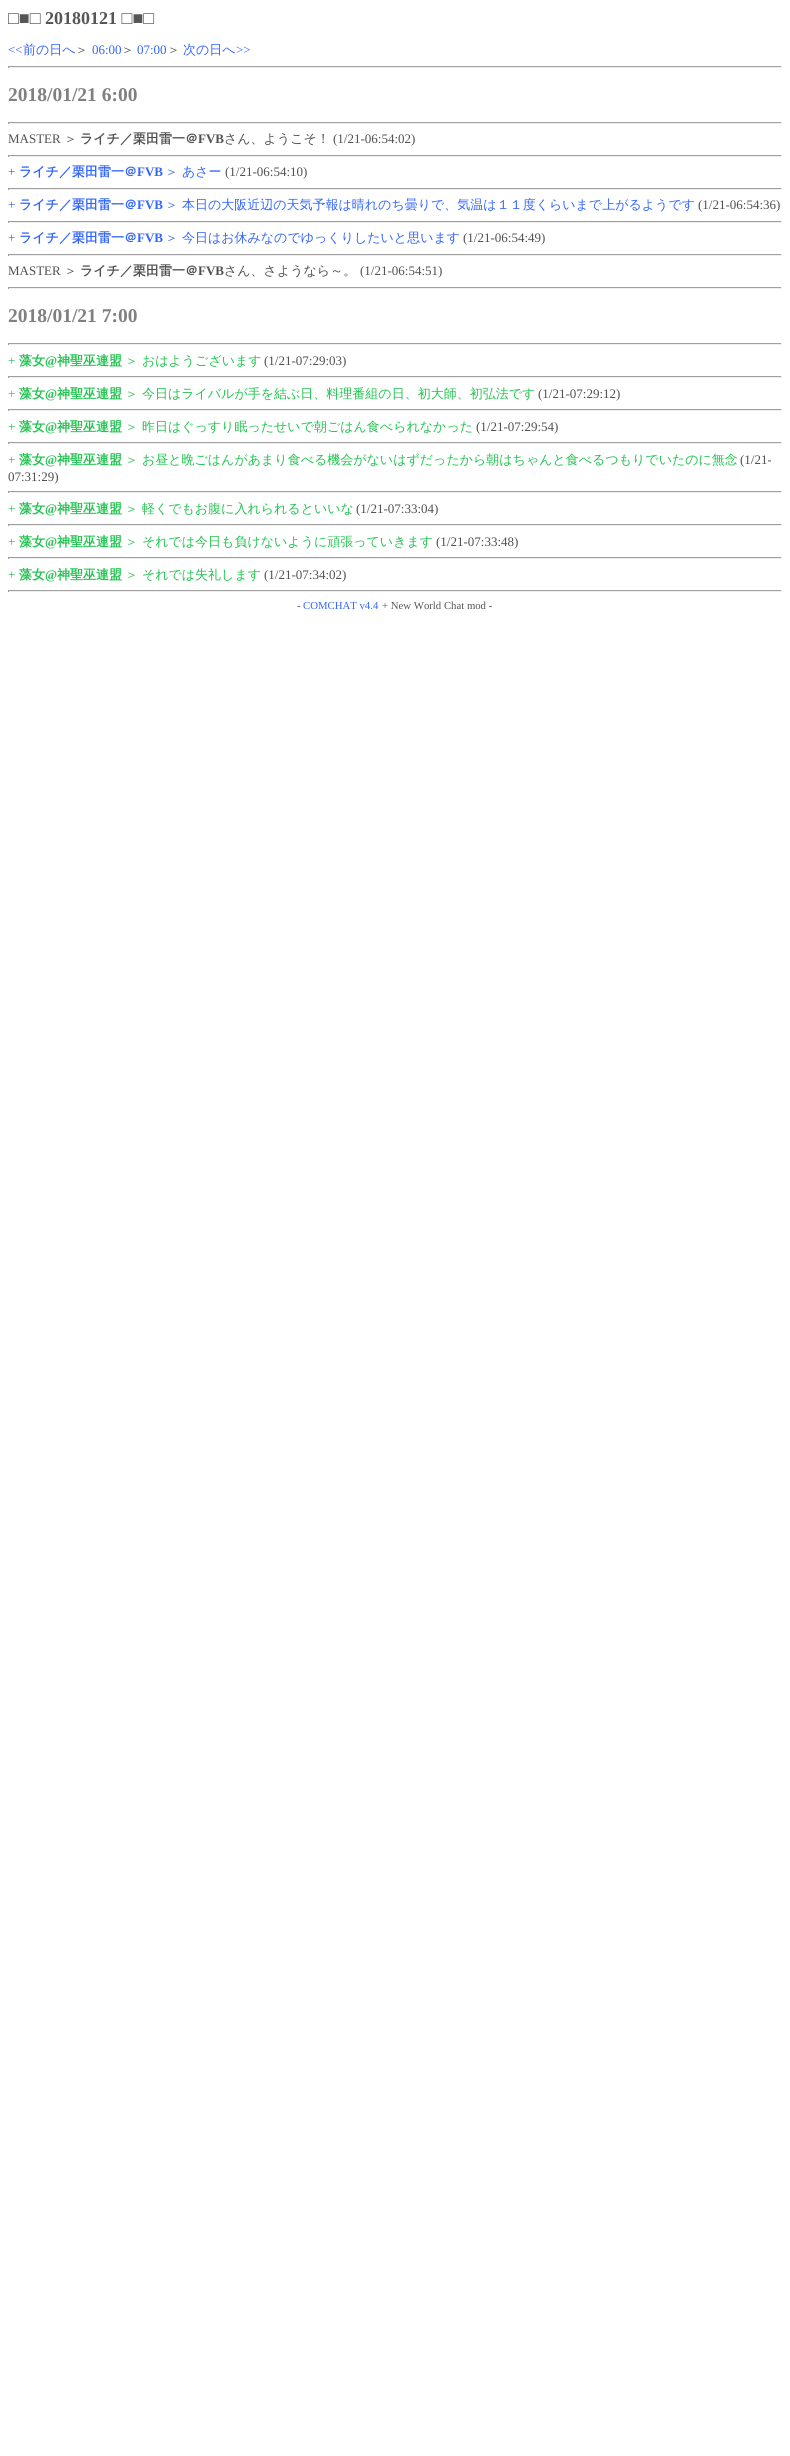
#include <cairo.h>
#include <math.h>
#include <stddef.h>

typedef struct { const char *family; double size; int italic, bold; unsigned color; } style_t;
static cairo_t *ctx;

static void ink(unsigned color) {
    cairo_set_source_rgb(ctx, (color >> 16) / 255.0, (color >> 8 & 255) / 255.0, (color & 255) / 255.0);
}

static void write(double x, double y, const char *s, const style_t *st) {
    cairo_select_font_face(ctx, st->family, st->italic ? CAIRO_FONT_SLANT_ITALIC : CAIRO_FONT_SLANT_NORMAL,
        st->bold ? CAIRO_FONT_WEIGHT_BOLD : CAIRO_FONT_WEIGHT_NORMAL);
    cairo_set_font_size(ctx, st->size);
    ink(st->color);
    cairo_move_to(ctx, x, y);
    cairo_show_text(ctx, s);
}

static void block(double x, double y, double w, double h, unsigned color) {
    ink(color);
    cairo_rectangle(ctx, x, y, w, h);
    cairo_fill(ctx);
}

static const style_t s1 = {"Liberation Serif", 18, 0, 1, 0x565656};
static const style_t s2 = {"Liberation Serif", 13, 0, 0, 0x3366ff};
static const style_t s3 = {"WenQuanYi Zen Hei Medium", 13, 0, 0, 0x3366ff};
static const style_t s4 = {"WenQuanYi Zen Hei Medium", 13, 0, 0, 0x565656};
static const style_t s5 = {"Liberation Serif", 19.5, 0, 1, 0x808080};
static const style_t s6 = {"Liberation Serif", 13, 0, 0, 0x505050};
static const style_t s7 = {"WenQuanYi Zen Hei Medium", 13, 0, 0, 0x505050};
static const style_t s8 = {"WenQuanYi Zen Hei", 13, 0, 1, 0x505050};
static const style_t s9 = {"Liberation Serif", 13, 0, 1, 0x505050};
static const style_t s10 = {"WenQuanYi Zen Hei", 13, 0, 1, 0x3366ff};
static const style_t s11 = {"Liberation Serif", 13, 0, 1, 0x3366ff};
static const style_t s12 = {"Liberation Serif", 13, 0, 0, 0x22c350};
static const style_t s13 = {"WenQuanYi Zen Hei", 13, 0, 1, 0x22c350};
static const style_t s14 = {"Liberation Serif", 13, 0, 1, 0x22c350};
static const style_t s15 = {"WenQuanYi Zen Hei Medium", 13, 0, 0, 0x22c350};
static const style_t s16 = {"Liberation Serif", 10.75, 0, 0, 0x565656};
static const style_t s17 = {"Liberation Serif", 10.75, 0, 0, 0x3366ff};

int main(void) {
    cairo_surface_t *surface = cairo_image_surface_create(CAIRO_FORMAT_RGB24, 790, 2456);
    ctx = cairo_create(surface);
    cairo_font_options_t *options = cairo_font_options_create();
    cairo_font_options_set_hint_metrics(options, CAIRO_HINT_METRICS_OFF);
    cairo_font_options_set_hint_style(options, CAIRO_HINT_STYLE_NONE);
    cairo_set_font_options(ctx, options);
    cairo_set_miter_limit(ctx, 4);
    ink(0xffffff);
    cairo_paint(ctx);
    write(8, 24, "□■□ 20180121 □■□", &s1);
    write(8, 54, "<<", &s2);
    write(23, 54, "前の日へ", &s3);
    write(75, 54, "＞", &s4);
    write(92, 54, "06:00", &s2);
    write(121, 54, "＞", &s4);
    write(137, 54, "07:00", &s2);
    write(167, 54, "＞", &s4);
    write(183, 54, "次の日へ", &s3);
    write(236, 54, ">>", &s2);
    block(8, 66, 774, 1, 0x9f9f9f);
    block(781, 66, 1, 2, 0xeeeeee);
    block(8, 67, 774, 1, 0xeeeeee);
    block(8, 66, 1, 2, 0x9f9f9f);
    write(8, 101, "2018/01/21 6:00", &s5);
    block(8, 122, 774, 1, 0x9f9f9f);
    block(781, 122, 1, 2, 0xeeeeee);
    block(8, 123, 774, 1, 0xeeeeee);
    block(8, 122, 1, 2, 0x9f9f9f);
    write(8, 143, "MASTER", &s6);
    write(64, 143, "＞", &s7);
    write(80, 143, "ライチ／栗田雷一＠", &s8);
    write(198, 143, "FVB", &s9);
    write(224, 143, "さん、ようこそ！", &s7);
    write(333, 143, "(1/21-06:54:02)", &s6);
    block(8, 155, 774, 1, 0x9f9f9f);
    block(781, 155, 1, 2, 0xeeeeee);
    block(8, 156, 774, 1, 0xeeeeee);
    block(8, 155, 1, 2, 0x9f9f9f);
    write(8, 176, "+", &s2);
    write(19, 176, "ライチ／栗田雷一＠", &s10);
    write(137, 176, "FVB", &s11);
    write(165, 176, "＞ あさー", &s3);
    write(225, 176, "(1/21-06:54:10)", &s6);
    block(8, 188, 774, 1, 0x9f9f9f);
    block(781, 188, 1, 2, 0xeeeeee);
    block(8, 189, 774, 1, 0xeeeeee);
    block(8, 188, 1, 2, 0x9f9f9f);
    write(8, 209, "+", &s2);
    write(19, 209, "ライチ／栗田雷一＠", &s10);
    write(137, 209, "FVB", &s11);
    write(165, 209, "＞ 本日の大阪近辺の天気予報は晴れのち曇りで、気温は１１度くらいまで上がるようです", &s3);
    write(698, 209, "(1/21-06:54:36)", &s6);
    block(8, 221, 774, 1, 0x9f9f9f);
    block(781, 221, 1, 2, 0xeeeeee);
    block(8, 222, 774, 1, 0xeeeeee);
    block(8, 221, 1, 2, 0x9f9f9f);
    write(8, 242, "+", &s2);
    write(19, 242, "ライチ／栗田雷一＠", &s10);
    write(137, 242, "FVB", &s11);
    write(165, 242, "＞ 今日はお休みなのでゆっくりしたいと思います", &s3);
    write(463, 242, "(1/21-06:54:49)", &s6);
    block(8, 254, 774, 1, 0x9f9f9f);
    block(781, 254, 1, 2, 0xeeeeee);
    block(8, 255, 774, 1, 0xeeeeee);
    block(8, 254, 1, 2, 0x9f9f9f);
    write(8, 275, "MASTER", &s6);
    write(64, 275, "＞", &s7);
    write(80, 275, "ライチ／栗田雷一＠", &s8);
    write(198, 275, "FVB", &s9);
    write(224, 275, "さん、さようなら～。", &s7);
    write(360, 275, "(1/21-06:54:51)", &s6);
    block(8, 287, 774, 1, 0x9f9f9f);
    block(781, 287, 1, 2, 0xeeeeee);
    block(8, 288, 774, 1, 0xeeeeee);
    block(8, 287, 1, 2, 0x9f9f9f);
    write(8, 322, "2018/01/21 7:00", &s5);
    block(8, 343, 774, 1, 0x9f9f9f);
    block(781, 343, 1, 2, 0xeeeeee);
    block(8, 344, 774, 1, 0xeeeeee);
    block(8, 343, 1, 2, 0x9f9f9f);
    write(8, 365, "+", &s12);
    write(19, 365, "藻女", &s13);
    write(45, 365, "@", &s14);
    write(57, 365, "神聖巫連盟", &s13);
    write(125, 365, "＞ おはようございます", &s15);
    write(264, 365, "(1/21-07:29:03)", &s6);
    block(8, 376, 774, 1, 0x9f9f9f);
    block(781, 376, 1, 2, 0xeeeeee);
    block(8, 377, 774, 1, 0xeeeeee);
    block(8, 376, 1, 2, 0x9f9f9f);
    write(8, 398, "+", &s12);
    write(19, 398, "藻女", &s13);
    write(45, 398, "@", &s14);
    write(57, 398, "神聖巫連盟", &s13);
    write(125, 398, "＞ 今日はライバルが手を結ぶ日、料理番組の日、初大師、初弘法です", &s15);
    write(538, 398, "(1/21-07:29:12)", &s6);
    block(8, 409, 774, 1, 0x9f9f9f);
    block(781, 409, 1, 2, 0xeeeeee);
    block(8, 410, 774, 1, 0xeeeeee);
    block(8, 409, 1, 2, 0x9f9f9f);
    write(8, 431, "+", &s12);
    write(19, 431, "藻女", &s13);
    write(45, 431, "@", &s14);
    write(57, 431, "神聖巫連盟", &s13);
    write(125, 431, "＞ 昨日はぐっすり眠ったせいで朝ごはん食べられなかった", &s15);
    write(476, 431, "(1/21-07:29:54)", &s6);
    block(8, 442, 774, 1, 0x9f9f9f);
    block(781, 442, 1, 2, 0xeeeeee);
    block(8, 443, 774, 1, 0xeeeeee);
    block(8, 442, 1, 2, 0x9f9f9f);
    write(8, 464, "+", &s12);
    write(19, 464, "藻女", &s13);
    write(45, 464, "@", &s14);
    write(57, 464, "神聖巫連盟", &s13);
    write(125, 464, "＞ お昼と晩ごはんがあまり食べる機会がないはずだったから朝はちゃんと食べるつもりでいたのに無念", &s15);
    write(740, 464, "(1/21-", &s6);
    write(8, 481, "07:31:29)", &s6);
    block(8, 491, 774, 1, 0x9f9f9f);
    block(781, 491, 1, 2, 0xeeeeee);
    block(8, 492, 774, 1, 0xeeeeee);
    block(8, 491, 1, 2, 0x9f9f9f);
    write(8, 513, "+", &s12);
    write(19, 513, "藻女", &s13);
    write(45, 513, "@", &s14);
    write(57, 513, "神聖巫連盟", &s13);
    write(125, 513, "＞ 軽くでもお腹に入れられるといいな", &s15);
    write(356, 513, "(1/21-07:33:04)", &s6);
    block(8, 524, 774, 1, 0x9f9f9f);
    block(781, 524, 1, 2, 0xeeeeee);
    block(8, 525, 774, 1, 0xeeeeee);
    block(8, 524, 1, 2, 0x9f9f9f);
    write(8, 546, "+", &s12);
    write(19, 546, "藻女", &s13);
    write(45, 546, "@", &s14);
    write(57, 546, "神聖巫連盟", &s13);
    write(125, 546, "＞ それでは今日も負けないように頑張っていきます", &s15);
    write(436, 546, "(1/21-07:33:48)", &s6);
    block(8, 557, 774, 1, 0x9f9f9f);
    block(781, 557, 1, 2, 0xeeeeee);
    block(8, 558, 774, 1, 0xeeeeee);
    block(8, 557, 1, 2, 0x9f9f9f);
    write(8, 579, "+", &s12);
    write(19, 579, "藻女", &s13);
    write(45, 579, "@", &s14);
    write(57, 579, "神聖巫連盟", &s13);
    write(125, 579, "＞ それでは失礼します", &s15);
    write(264, 579, "(1/21-07:34:02)", &s6);
    block(8, 590, 774, 1, 0x9f9f9f);
    block(781, 590, 1, 2, 0xeeeeee);
    block(8, 591, 774, 1, 0xeeeeee);
    block(8, 590, 1, 2, 0x9f9f9f);
    write(297, 609, "-", &s16);
    write(303, 609, "COMCHAT v4.4", &s17);
    write(382, 609, "+ New World Chat mod -", &s16);
    cairo_surface_write_to_png(surface, "screenshot.png");
    cairo_font_options_destroy(options);
    cairo_destroy(ctx);
    cairo_surface_destroy(surface);
    return 0;
}
